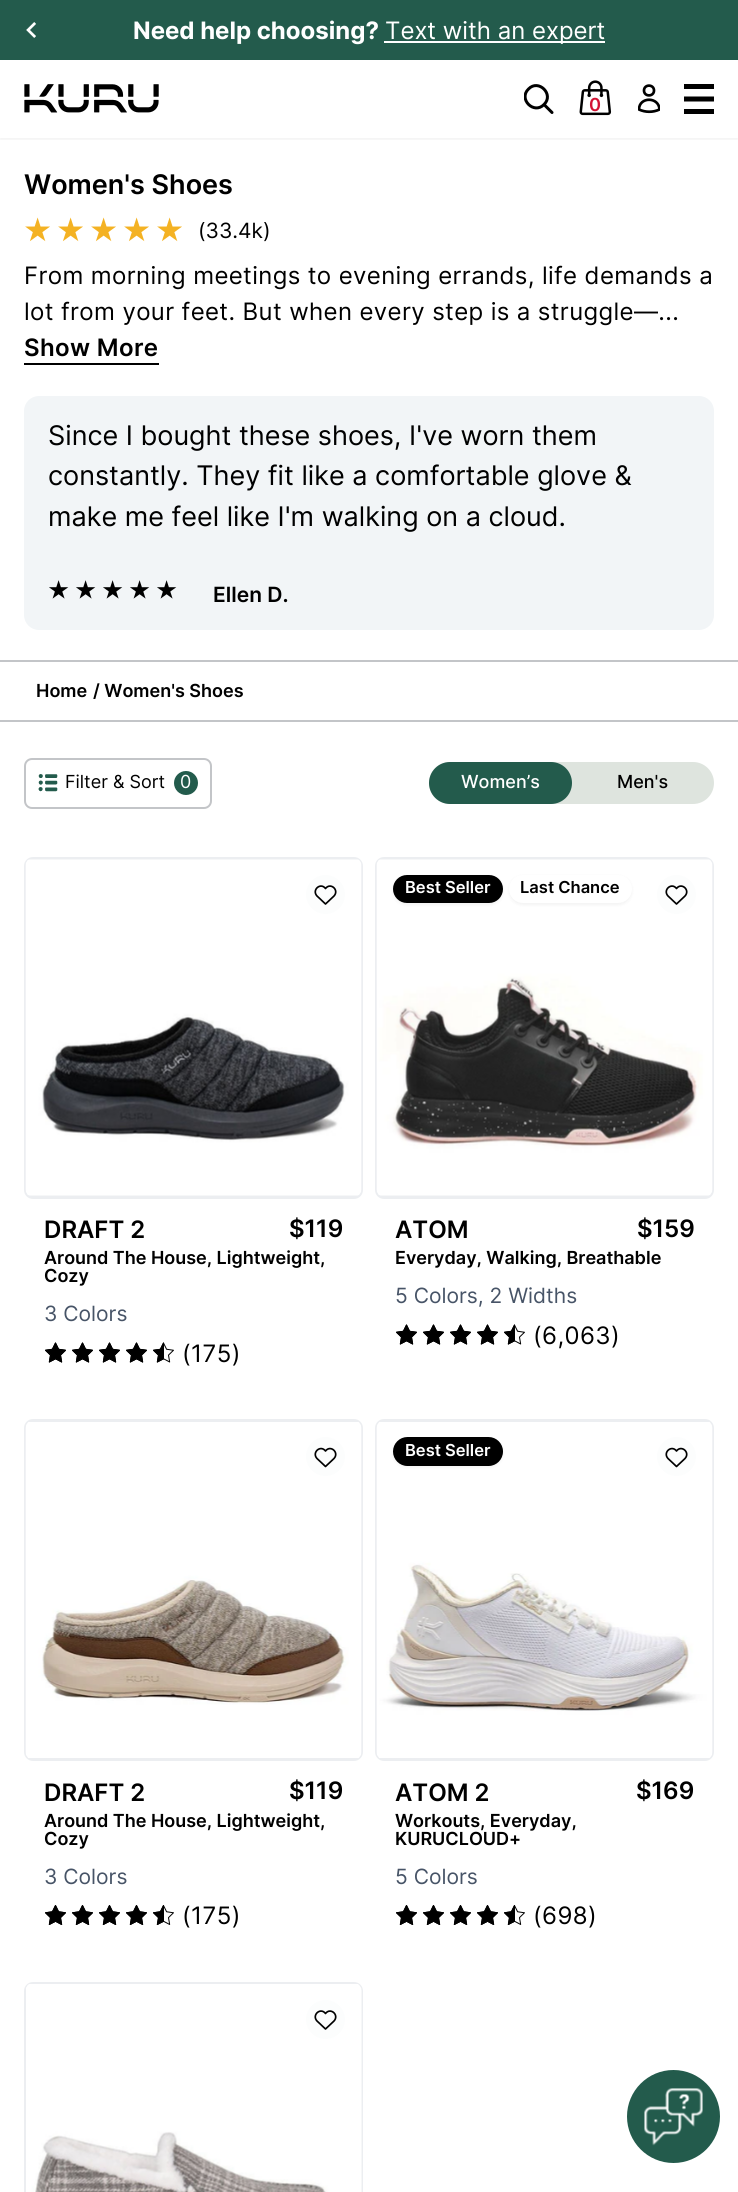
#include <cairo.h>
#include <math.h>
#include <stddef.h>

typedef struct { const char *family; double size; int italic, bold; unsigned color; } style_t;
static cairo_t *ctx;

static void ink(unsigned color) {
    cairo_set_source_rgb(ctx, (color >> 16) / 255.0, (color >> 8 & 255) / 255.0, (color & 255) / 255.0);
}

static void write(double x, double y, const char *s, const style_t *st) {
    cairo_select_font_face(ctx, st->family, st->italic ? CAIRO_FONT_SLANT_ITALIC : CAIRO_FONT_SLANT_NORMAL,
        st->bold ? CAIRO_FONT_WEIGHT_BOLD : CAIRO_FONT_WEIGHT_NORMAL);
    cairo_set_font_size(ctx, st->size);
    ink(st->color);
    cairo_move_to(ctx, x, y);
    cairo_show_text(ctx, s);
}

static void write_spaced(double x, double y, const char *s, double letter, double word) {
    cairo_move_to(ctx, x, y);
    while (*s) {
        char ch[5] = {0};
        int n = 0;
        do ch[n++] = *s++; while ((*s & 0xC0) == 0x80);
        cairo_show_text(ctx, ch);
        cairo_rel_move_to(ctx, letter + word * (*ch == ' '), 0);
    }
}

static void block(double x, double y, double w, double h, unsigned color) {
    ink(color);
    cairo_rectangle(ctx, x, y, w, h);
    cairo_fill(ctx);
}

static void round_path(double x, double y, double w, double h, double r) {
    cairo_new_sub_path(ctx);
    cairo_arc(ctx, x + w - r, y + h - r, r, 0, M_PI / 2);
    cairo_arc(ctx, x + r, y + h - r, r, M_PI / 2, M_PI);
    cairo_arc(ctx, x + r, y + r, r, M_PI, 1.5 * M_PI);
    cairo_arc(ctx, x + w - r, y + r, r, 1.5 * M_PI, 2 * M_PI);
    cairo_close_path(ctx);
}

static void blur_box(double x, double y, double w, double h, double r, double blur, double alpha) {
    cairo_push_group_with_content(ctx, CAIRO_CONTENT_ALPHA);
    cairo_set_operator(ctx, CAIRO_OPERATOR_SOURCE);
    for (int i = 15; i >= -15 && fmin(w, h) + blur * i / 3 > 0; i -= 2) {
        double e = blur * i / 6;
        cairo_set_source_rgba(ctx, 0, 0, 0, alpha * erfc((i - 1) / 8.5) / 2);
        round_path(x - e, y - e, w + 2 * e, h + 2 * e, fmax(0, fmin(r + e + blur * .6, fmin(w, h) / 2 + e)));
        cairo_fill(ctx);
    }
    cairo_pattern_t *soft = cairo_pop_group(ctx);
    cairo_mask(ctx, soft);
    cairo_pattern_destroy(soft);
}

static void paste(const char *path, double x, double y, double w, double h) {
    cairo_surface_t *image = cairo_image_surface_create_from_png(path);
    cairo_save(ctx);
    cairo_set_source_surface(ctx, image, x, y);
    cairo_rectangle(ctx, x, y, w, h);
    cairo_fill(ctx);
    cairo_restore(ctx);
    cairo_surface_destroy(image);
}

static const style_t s1 = {"Inter", 24, 0, 1, 0xffffff};
static const style_t s2 = {"Inter", 24, 0, 0, 0xffffff};
static const style_t s3 = {"Inter SemiBold", 18, 0, 0, 0xd31334};
static const style_t s4 = {"Inter SemiBold", 27, 0, 0, 0x000000};
static const style_t s5 = {"Inter", 21, 0, 0, 0x000000};
static const style_t s6 = {"Inter", 27, 0, 0, 0x000000};
static const style_t s7 = {"Inter SemiBold", 21, 0, 0, 0x000000};
static const style_t s8 = {"Inter SemiBold", 18, 0, 0, 0x000000};
static const style_t s9 = {"Inter", 18, 0, 0, 0x000000};
static const style_t s10 = {"Inter", 18, 0, 0, 0xffffff};
static const style_t s11 = {"Inter Medium", 18, 0, 0, 0xffffff};
static const style_t s12 = {"Inter Medium", 18, 0, 0, 0x000000};
static const style_t s13 = {"Inter SemiBold", 24, 0, 0, 0x000000};
static const style_t s14 = {"Inter", 21, 0, 0, 0x475467};
static const style_t s15 = {"Inter SemiBold", 16.5, 0, 0, 0xffffff};
static const style_t s16 = {"Inter SemiBold", 16.5, 0, 0, 0x000000};

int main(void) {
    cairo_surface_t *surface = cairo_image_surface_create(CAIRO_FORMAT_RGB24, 738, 2192);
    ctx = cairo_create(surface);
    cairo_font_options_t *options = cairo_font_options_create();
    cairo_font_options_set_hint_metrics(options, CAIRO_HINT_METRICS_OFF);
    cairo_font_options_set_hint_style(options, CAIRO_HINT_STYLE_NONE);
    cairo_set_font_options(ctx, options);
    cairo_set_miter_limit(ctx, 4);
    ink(0xffffff);
    cairo_paint(ctx);
    cairo_save(ctx);
    cairo_rectangle(ctx, 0, 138, 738, 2);
    cairo_clip(ctx);
    ink(0x000000);
    blur_box(0, 2, 738, 138, 0, 1.5, 0.05);
    cairo_restore(ctx);
    block(0, 0, 738, 60, 0x235b4c);
    paste("pic1.png", 26, 22, 10, 16);
    write(133, 39, "Need help choosing?", &s1);
    block(384, 41, 221, 2, 0xffffff);
    write(385, 39, "Text with an expert", &s2);
    paste("pic2.png", 24, 84, 135, 29);
    cairo_save(ctx);
    cairo_rectangle(ctx, 524, 84, 30, 30);
    cairo_clip(ctx);
    cairo_new_path(ctx);
    cairo_move_to(ctx, 552, 112.5);
    cairo_line_to(ctx, 544, 104.5);
    cairo_move_to(ctx, 544, 104.5);
    cairo_curve_to(ctx, 554.5, 94.5, 538.5, 78.5, 528.5, 89);
    cairo_curve_to(ctx, 518, 99, 534, 115, 544, 104.5);
    cairo_close_path(ctx);
    ink(0x000000);
    cairo_set_line_width(ctx, 3);
    cairo_set_line_cap(ctx, CAIRO_LINE_CAP_ROUND);
    cairo_set_line_join(ctx, CAIRO_LINE_JOIN_ROUND);
    cairo_stroke(ctx);
    cairo_restore(ctx);
    paste("pic3.png", 579, 80, 33, 36);
    write(589, 111, "0", &s3);
    cairo_save(ctx);
    cairo_rectangle(ctx, 638, 84, 22, 30);
    cairo_clip(ctx);
    cairo_new_path(ctx);
    cairo_move_to(ctx, 654, 90.5);
    cairo_curve_to(ctx, 654, 97, 644, 97, 644, 90.5);
    cairo_curve_to(ctx, 644, 84, 654, 84, 654, 90.5);
    cairo_close_path(ctx);
    cairo_move_to(ctx, 639, 109.5);
    cairo_curve_to(ctx, 639, 96.5, 659, 96.5, 659.5, 109.5);
    cairo_curve_to(ctx, 653, 112.5, 645.5, 112.5, 639, 109.5);
    cairo_close_path(ctx);
    ink(0x000000);
    cairo_set_line_width(ctx, 2.7);
    cairo_set_line_cap(ctx, CAIRO_LINE_CAP_ROUND);
    cairo_set_line_join(ctx, CAIRO_LINE_JOIN_ROUND);
    cairo_stroke(ctx);
    cairo_restore(ctx);
    block(684, 84, 30, 5, 0x000000);
    cairo_new_path(ctx);
    cairo_move_to(ctx, 684, 99);
    cairo_line_to(ctx, 714, 99);
    cairo_set_line_width(ctx, 5);
    cairo_stroke(ctx);
    block(684, 109, 30, 5, 0x000000);
    write(24, 194, "Women's Shoes", &s4);
    paste("pic4.png", 25, 217, 25, 25);
    paste("pic4.png", 58, 217, 25, 25);
    paste("pic4.png", 91, 217, 25, 25);
    paste("pic4.png", 124, 217, 25, 25);
    paste("pic4.png", 157, 217, 25, 25);
    write(198, 238, "(33.4k)", &s5);
    cairo_set_font_size(ctx, 24);
    write_spaced(24, 284, "From morning meetings to evening errands, life demands a", 0.38, 0);
    write_spaced(24, 320, "lot from your feet. But when every step is a struggle—...", 0.38, 0);
    cairo_select_font_face(ctx, "Inter SemiBold", CAIRO_FONT_SLANT_NORMAL, CAIRO_FONT_WEIGHT_NORMAL);
    write_spaced(24, 356, "Show More", 0.38, 0);
    block(24, 363, 135, 2, 0x000000);
    ink(0xf2f5f7);
    round_path(24, 396, 690, 234, 15);
    cairo_fill(ctx);
    write(48, 445, "Since I bought these shoes, I've worn them", &s6);
    write(48, 485, "constantly. They fit like a comfortable glove &", &s6);
    write(48, 526, "make me feel like I'm walking on a cloud.", &s6);
    paste("pic5.png", 49, 580, 20, 19);
    paste("pic5.png", 76, 580, 20, 19);
    paste("pic5.png", 103, 580, 20, 19);
    paste("pic5.png", 130, 580, 20, 19);
    paste("pic5.png", 157, 580, 20, 19);
    write(213, 602, "Ellen D.", &s7);
    block(0, 660, 738, 2, 0xc3c5c8);
    block(0, 720, 738, 2, 0xc3c5c8);
    write(36, 697, "Home", &s8);
    write(93, 697, "/ Women's Shoes", &s8);
    round_path(25, 759, 186, 49, 7);
    ink(0xc3c5c8);
    cairo_set_line_width(ctx, 2);
    cairo_stroke(ctx);
    paste("pic6.png", 38, 774, 20, 18);
    write(65, 788, "Filter & Sort", &s9);
    ink(0x235b4c);
    cairo_new_path(ctx);
    cairo_arc(ctx, 186, 783, 12, 0, 2 * M_PI);
    cairo_fill(ctx);
    write(180, 788, "0", &s10);
    ink(0xdee4de);
    round_path(429, 762, 285, 42, 21);
    cairo_fill(ctx);
    ink(0x235b4c);
    round_path(429, 762, 143, 42, 21);
    cairo_fill(ctx);
    write(461, 788, "Women’s", &s11);
    write(617, 788, "Men's", &s12);
    ink(0xeceef1);
    round_path(25, 858, 337, 340, 8);
    cairo_fill_preserve(ctx);
    cairo_stroke(ctx);
    paste("pic7.png", 25, 859, 337, 337);
    ink(0xfcfdfd);
    cairo_arc(ctx, 325.5, 894.5, 19.5, 0, 2 * M_PI);
    cairo_fill(ctx);
    cairo_new_path(ctx);
    cairo_move_to(ctx, 334, 896);
    cairo_line_to(ctx, 325.5, 904);
    cairo_line_to(ctx, 317, 896);
    cairo_move_to(ctx, 317, 896);
    cairo_curve_to(ctx, 311.5, 890, 320.5, 882, 325.5, 888.5);
    cairo_curve_to(ctx, 330.5, 882, 339.5, 890, 334, 896);
    ink(0x000000);
    cairo_set_line_width(ctx, 1.7);
    cairo_set_line_cap(ctx, CAIRO_LINE_CAP_ROUND);
    cairo_set_line_join(ctx, CAIRO_LINE_JOIN_ROUND);
    cairo_stroke(ctx);
    write(44, 1238, "DRAFT 2", &s13);
    write(289, 1237, "$119", &s13);
    write(44, 1264, "Around The House, Lightweight,", &s8);
    write(44, 1282, "Cozy", &s8);
    write(44, 1321, "3 Colors", &s14);
    paste("pic8.png", 45, 1342, 21, 21);
    paste("pic9.png", 45, 1342, 21, 21);
    paste("pic8.png", 72, 1342, 21, 21);
    paste("pic9.png", 72, 1342, 21, 21);
    paste("pic8.png", 99, 1342, 21, 21);
    paste("pic9.png", 99, 1342, 21, 21);
    paste("pic8.png", 126, 1342, 21, 21);
    paste("pic9.png", 126, 1342, 21, 21);
    paste("pic8.png", 153, 1342, 21, 21);
    paste("pic10.png", 153, 1342, 11, 21);
    cairo_set_font_size(ctx, 24);
    ink(0x000000);
    write_spaced(182, 1362, "(175)", 0.38, 0);
    ink(0xeceef1);
    round_path(376, 858, 337, 340, 8);
    cairo_fill_preserve(ctx);
    cairo_set_line_width(ctx, 2);
    cairo_set_line_cap(ctx, CAIRO_LINE_CAP_BUTT);
    cairo_set_line_join(ctx, CAIRO_LINE_JOIN_MITER);
    cairo_stroke(ctx);
    paste("pic11.png", 376, 859, 337, 337);
    ink(0x000000);
    blur_box(393, 876, 110, 29, 14.5, 1.5, 0.05);
    ink(0x000000);
    round_path(393, 875, 110, 28, 14);
    cairo_fill(ctx);
    write(405, 893, "Best Seller", &s15);
    ink(0x000000);
    blur_box(509, 876, 123, 29, 14.5, 1.5, 0.05);
    ink(0xffffff);
    round_path(509, 875, 123, 28, 14);
    cairo_fill(ctx);
    write(520, 893, "Last Chance", &s16);
    ink(0xfcfdfd);
    cairo_new_path(ctx);
    cairo_arc(ctx, 676.5, 894.5, 19.5, 0, 2 * M_PI);
    cairo_fill(ctx);
    cairo_new_path(ctx);
    cairo_move_to(ctx, 685, 896);
    cairo_line_to(ctx, 676.5, 904);
    cairo_line_to(ctx, 668, 896);
    cairo_move_to(ctx, 668, 896);
    cairo_curve_to(ctx, 662.5, 890, 671.5, 882, 676.5, 888.5);
    cairo_curve_to(ctx, 681.5, 882, 690.5, 890, 685, 896);
    ink(0x000000);
    cairo_set_line_width(ctx, 1.7);
    cairo_set_line_cap(ctx, CAIRO_LINE_CAP_ROUND);
    cairo_set_line_join(ctx, CAIRO_LINE_JOIN_ROUND);
    cairo_stroke(ctx);
    write(395, 1238, "ATOM", &s13);
    write(637, 1237, "$159", &s13);
    write(395, 1264, "Everyday, Walking, Breathable", &s8);
    write(395, 1303, "5 Colors, 2 Widths", &s14);
    paste("pic8.png", 396, 1324, 21, 21);
    paste("pic9.png", 396, 1324, 21, 21);
    paste("pic8.png", 423, 1324, 21, 21);
    paste("pic9.png", 423, 1324, 21, 21);
    paste("pic8.png", 450, 1324, 21, 21);
    paste("pic9.png", 450, 1324, 21, 21);
    paste("pic8.png", 477, 1324, 21, 21);
    paste("pic9.png", 477, 1324, 21, 21);
    paste("pic8.png", 504, 1324, 21, 21);
    paste("pic10.png", 504, 1324, 11, 21);
    cairo_set_font_size(ctx, 24);
    ink(0x000000);
    write_spaced(533, 1344, "(6,063)", 0.38, 0);
    ink(0xeceef1);
    round_path(25, 1420, 337, 340, 8);
    cairo_fill_preserve(ctx);
    cairo_set_line_width(ctx, 2);
    cairo_set_line_cap(ctx, CAIRO_LINE_CAP_BUTT);
    cairo_set_line_join(ctx, CAIRO_LINE_JOIN_MITER);
    cairo_stroke(ctx);
    paste("pic12.png", 25, 1422, 337, 336);
    ink(0xfcfdfd);
    cairo_arc(ctx, 325.5, 1456.5, 19.5, 0, 2 * M_PI);
    cairo_fill(ctx);
    cairo_new_path(ctx);
    cairo_move_to(ctx, 334, 1458.5);
    cairo_line_to(ctx, 325.5, 1466.5);
    cairo_line_to(ctx, 317, 1458.5);
    cairo_move_to(ctx, 317, 1458.5);
    cairo_curve_to(ctx, 311.5, 1452.5, 320.5, 1444.5, 325.5, 1451);
    cairo_curve_to(ctx, 330.5, 1444.5, 339.5, 1452.5, 334, 1458.5);
    ink(0x000000);
    cairo_set_line_width(ctx, 1.7);
    cairo_set_line_cap(ctx, CAIRO_LINE_CAP_ROUND);
    cairo_set_line_join(ctx, CAIRO_LINE_JOIN_ROUND);
    cairo_stroke(ctx);
    write(44, 1801, "DRAFT 2", &s13);
    write(289, 1799, "$119", &s13);
    write(44, 1827, "Around The House, Lightweight,", &s8);
    write(44, 1845, "Cozy", &s8);
    write(44, 1884, "3 Colors", &s14);
    paste("pic13.png", 45, 1905, 21, 20);
    paste("pic14.png", 45, 1905, 21, 20);
    paste("pic13.png", 72, 1905, 21, 20);
    paste("pic14.png", 72, 1905, 21, 20);
    paste("pic13.png", 99, 1905, 21, 20);
    paste("pic14.png", 99, 1905, 21, 20);
    paste("pic13.png", 126, 1905, 21, 20);
    paste("pic14.png", 126, 1905, 21, 20);
    paste("pic13.png", 153, 1905, 21, 20);
    paste("pic15.png", 153, 1905, 11, 20);
    cairo_set_font_size(ctx, 24);
    ink(0x000000);
    write_spaced(182, 1924, "(175)", 0.38, 0);
    ink(0xeceef1);
    round_path(376, 1420, 337, 340, 8);
    cairo_fill_preserve(ctx);
    cairo_set_line_width(ctx, 2);
    cairo_set_line_cap(ctx, CAIRO_LINE_CAP_BUTT);
    cairo_set_line_join(ctx, CAIRO_LINE_JOIN_MITER);
    cairo_stroke(ctx);
    paste("pic16.png", 376, 1422, 337, 336);
    ink(0x000000);
    blur_box(393, 1439, 110, 28, 14, 1.5, 0.05);
    ink(0x000000);
    round_path(393, 1437, 110, 29, 14.5);
    cairo_fill(ctx);
    write(405, 1456, "Best Seller", &s15);
    ink(0xfcfdfd);
    cairo_new_path(ctx);
    cairo_arc(ctx, 676.5, 1456.5, 19.5, 0, 2 * M_PI);
    cairo_fill(ctx);
    cairo_new_path(ctx);
    cairo_move_to(ctx, 685, 1458.5);
    cairo_line_to(ctx, 676.5, 1466.5);
    cairo_line_to(ctx, 668, 1458.5);
    cairo_move_to(ctx, 668, 1458.5);
    cairo_curve_to(ctx, 662.5, 1452.5, 671.5, 1444.5, 676.5, 1451);
    cairo_curve_to(ctx, 681.5, 1444.5, 690.5, 1452.5, 685, 1458.5);
    ink(0x000000);
    cairo_set_line_width(ctx, 1.7);
    cairo_set_line_cap(ctx, CAIRO_LINE_CAP_ROUND);
    cairo_set_line_join(ctx, CAIRO_LINE_JOIN_ROUND);
    cairo_stroke(ctx);
    write(395, 1801, "ATOM 2", &s13);
    write(636, 1799, "$169", &s13);
    write(395, 1827, "Workouts, Everyday,", &s8);
    write(395, 1845, "KURUCLOUD+", &s8);
    write(395, 1884, "5 Colors", &s14);
    paste("pic13.png", 396, 1905, 21, 20);
    paste("pic14.png", 396, 1905, 21, 20);
    paste("pic13.png", 423, 1905, 21, 20);
    paste("pic14.png", 423, 1905, 21, 20);
    paste("pic13.png", 450, 1905, 21, 20);
    paste("pic14.png", 450, 1905, 21, 20);
    paste("pic13.png", 477, 1905, 21, 20);
    paste("pic14.png", 477, 1905, 21, 20);
    paste("pic13.png", 504, 1905, 21, 20);
    paste("pic15.png", 504, 1905, 11, 20);
    cairo_set_font_size(ctx, 24);
    ink(0x000000);
    write_spaced(533, 1924, "(698)", 0.38, 0);
    round_path(25, 1983, 337, 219, 8);
    ink(0xeceef1);
    cairo_set_line_width(ctx, 2);
    cairo_set_line_cap(ctx, CAIRO_LINE_CAP_BUTT);
    cairo_set_line_join(ctx, CAIRO_LINE_JOIN_MITER);
    cairo_stroke(ctx);
    paste("pic17.png", 26, 1984, 336, 208);
    ink(0xfcfdfd);
    cairo_arc(ctx, 325.5, 2019.5, 19.5, 0, 2 * M_PI);
    cairo_fill(ctx);
    cairo_new_path(ctx);
    cairo_move_to(ctx, 334, 2021);
    cairo_line_to(ctx, 325.5, 2029);
    cairo_line_to(ctx, 317, 2021);
    cairo_move_to(ctx, 317, 2021);
    cairo_curve_to(ctx, 311.5, 2015, 320.5, 2007, 325.5, 2013.5);
    cairo_curve_to(ctx, 330.5, 2007, 339.5, 2015, 334, 2021);
    ink(0x000000);
    cairo_set_line_width(ctx, 1.7);
    cairo_set_line_cap(ctx, CAIRO_LINE_CAP_ROUND);
    cairo_set_line_join(ctx, CAIRO_LINE_JOIN_ROUND);
    cairo_stroke(ctx);
    ink(0x235b4c);
    cairo_arc(ctx, 673.5, 2116.5, 46.5, 0, 2 * M_PI);
    cairo_fill(ctx);
    paste("pic18.png", 644, 2088, 59, 58);
    cairo_surface_write_to_png(surface, "screenshot.png");
    cairo_font_options_destroy(options);
    cairo_destroy(ctx);
    cairo_surface_destroy(surface);
    return 0;
}
